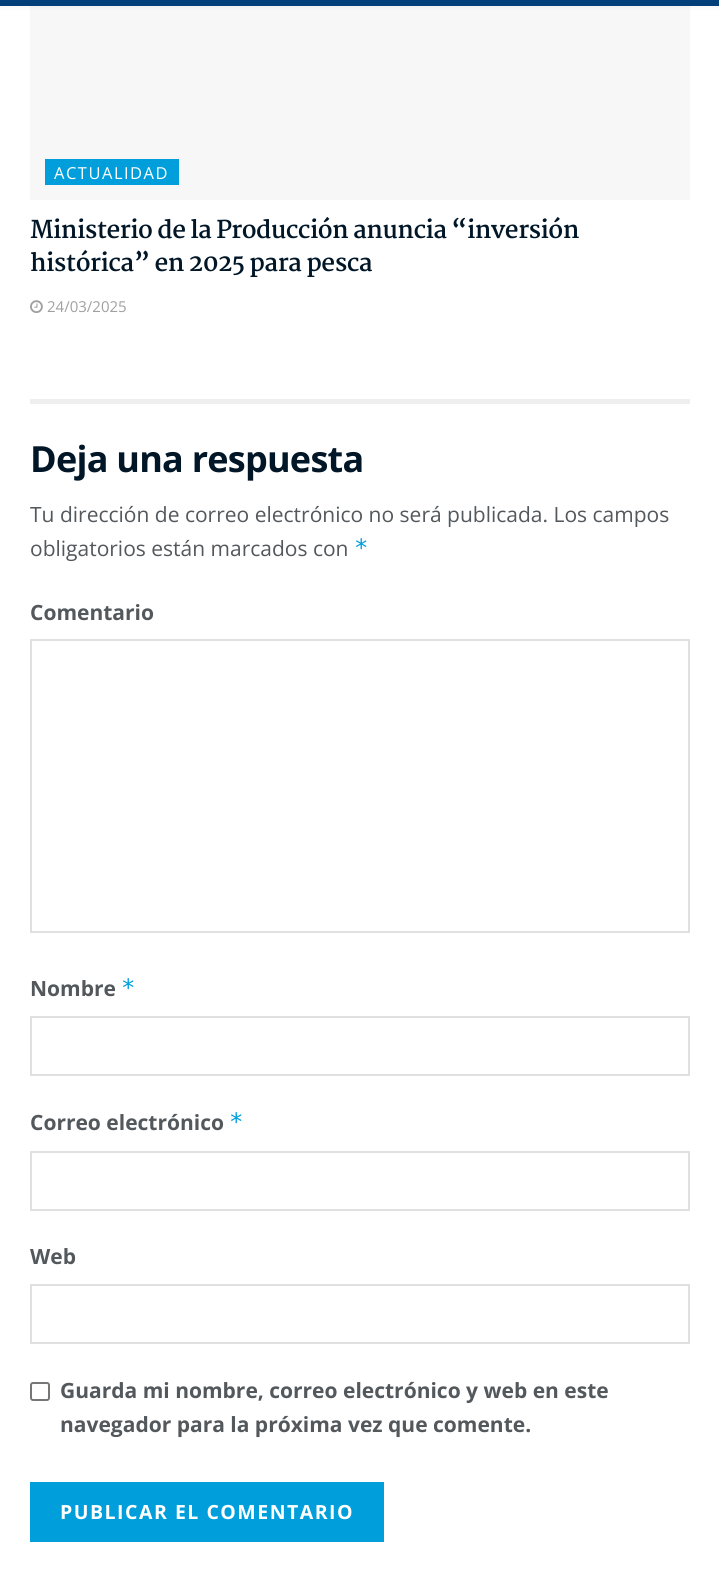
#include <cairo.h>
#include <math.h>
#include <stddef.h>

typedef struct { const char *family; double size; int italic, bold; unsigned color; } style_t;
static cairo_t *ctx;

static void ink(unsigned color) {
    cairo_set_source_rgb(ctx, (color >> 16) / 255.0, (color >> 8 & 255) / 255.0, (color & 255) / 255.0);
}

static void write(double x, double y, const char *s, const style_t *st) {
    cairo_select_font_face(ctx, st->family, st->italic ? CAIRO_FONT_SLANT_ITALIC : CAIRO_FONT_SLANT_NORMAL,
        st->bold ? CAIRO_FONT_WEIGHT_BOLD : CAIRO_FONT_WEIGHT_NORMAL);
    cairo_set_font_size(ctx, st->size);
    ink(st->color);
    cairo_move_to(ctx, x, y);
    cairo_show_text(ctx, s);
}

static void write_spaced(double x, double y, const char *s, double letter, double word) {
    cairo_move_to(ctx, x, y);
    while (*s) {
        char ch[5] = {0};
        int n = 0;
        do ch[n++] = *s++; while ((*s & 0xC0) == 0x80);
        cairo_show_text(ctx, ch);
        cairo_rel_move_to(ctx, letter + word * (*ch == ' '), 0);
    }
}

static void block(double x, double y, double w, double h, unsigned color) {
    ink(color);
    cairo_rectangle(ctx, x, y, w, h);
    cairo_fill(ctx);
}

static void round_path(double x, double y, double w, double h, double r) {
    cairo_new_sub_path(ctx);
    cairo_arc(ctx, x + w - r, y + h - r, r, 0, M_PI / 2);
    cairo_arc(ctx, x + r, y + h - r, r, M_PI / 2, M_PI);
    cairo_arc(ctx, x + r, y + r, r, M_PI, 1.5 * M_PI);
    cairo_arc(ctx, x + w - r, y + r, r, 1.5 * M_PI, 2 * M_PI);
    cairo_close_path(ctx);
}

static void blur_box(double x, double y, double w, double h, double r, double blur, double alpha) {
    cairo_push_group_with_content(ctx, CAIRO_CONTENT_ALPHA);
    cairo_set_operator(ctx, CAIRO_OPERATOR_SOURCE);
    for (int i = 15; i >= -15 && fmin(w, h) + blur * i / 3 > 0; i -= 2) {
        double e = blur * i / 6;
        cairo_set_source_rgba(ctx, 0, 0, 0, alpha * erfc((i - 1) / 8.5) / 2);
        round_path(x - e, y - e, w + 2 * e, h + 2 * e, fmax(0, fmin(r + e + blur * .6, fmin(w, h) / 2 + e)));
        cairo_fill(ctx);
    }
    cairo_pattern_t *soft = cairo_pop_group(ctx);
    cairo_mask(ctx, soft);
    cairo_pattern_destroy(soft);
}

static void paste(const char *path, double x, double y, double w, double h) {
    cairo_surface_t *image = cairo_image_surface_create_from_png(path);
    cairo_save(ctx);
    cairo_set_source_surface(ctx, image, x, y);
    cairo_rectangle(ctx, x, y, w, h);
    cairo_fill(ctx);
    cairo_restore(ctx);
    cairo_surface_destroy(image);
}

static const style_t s1 = {"Open Sans", 15, 0, 0, 0xa0a0a0};
static const style_t s2 = {"Open Sans", 21, 0, 0, 0x53585c};
static const style_t s3 = {"DejaVu Sans Mono", 24, 0, 0, 0x009fdc};
static const style_t s4 = {"Open Sans", 21, 0, 1, 0x53585c};

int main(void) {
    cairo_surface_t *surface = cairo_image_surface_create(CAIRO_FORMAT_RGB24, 719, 1572);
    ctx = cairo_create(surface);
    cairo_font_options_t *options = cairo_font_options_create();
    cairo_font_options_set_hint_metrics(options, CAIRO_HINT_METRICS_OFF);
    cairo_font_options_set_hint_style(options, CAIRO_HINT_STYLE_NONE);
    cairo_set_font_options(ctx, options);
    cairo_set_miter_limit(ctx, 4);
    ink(0xffffff);
    cairo_paint(ctx);
    block(30, 6, 660, 194, 0xf7f7f7);
    ink(0x000000);
    blur_box(0, -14, 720, 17, 0, 4.5, 0.1);
    block(0, 0, 719, 6, 0x033f78);
    block(45, 159, 134, 26, 0x009fdc);
    cairo_select_font_face(ctx, "Open Sans", CAIRO_FONT_SLANT_NORMAL, CAIRO_FONT_WEIGHT_NORMAL);
    cairo_set_font_size(ctx, 16.5);
    ink(0xffffff);
    write_spaced(54, 179, "ACTUALIDAD", 1.5, 0);
    cairo_select_font_face(ctx, "Martel", CAIRO_FONT_SLANT_NORMAL, CAIRO_FONT_WEIGHT_BOLD);
    cairo_set_font_size(ctx, 24);
    ink(0x011627);
    write_spaced(30, 238, "Ministerio de la Producción anuncia “inversión", -0.5, 0);
    write_spaced(30, 271, "histórica” en 2025 para pesca", -0.5, 0);
    paste("pic1.png", 30, 300, 13, 13);
    write(47, 312, "24/03/2025", &s1);
    block(30, 399, 660, 5, 0xeeeeee);
    cairo_select_font_face(ctx, "Open Sans", CAIRO_FONT_SLANT_NORMAL, CAIRO_FONT_WEIGHT_BOLD);
    cairo_set_font_size(ctx, 36);
    ink(0x011627);
    write_spaced(30, 472, "Deja una respuesta", -0.75, 0);
    write(30, 522, "Tu dirección de correo electrónico no será publicada. Los campos", &s2);
    write(30, 556, "obligatorios están marcados con", &s2);
    write(354, 556, "*", &s3);
    write(30, 620, "Comentario", &s4);
    cairo_rectangle(ctx, 31, 640, 658, 292);
    ink(0xe0e0e0);
    cairo_stroke(ctx);
    write(30, 996, "Nombre", &s4);
    write(121, 996, "*", &s3);
    cairo_rectangle(ctx, 31, 1017, 658, 58);
    ink(0xe0e0e0);
    cairo_stroke(ctx);
    write(30, 1130, "Correo electrónico", &s4);
    write(229, 1130, "*", &s3);
    cairo_rectangle(ctx, 31, 1152, 658, 58);
    ink(0xe0e0e0);
    cairo_stroke(ctx);
    write(30, 1264, "Web", &s4);
    cairo_rectangle(ctx, 31, 1285, 658, 58);
    ink(0xe0e0e0);
    cairo_stroke(ctx);
    round_path(31, 1383, 18, 17, 2);
    ink(0x767676);
    cairo_stroke(ctx);
    write(60, 1398, "Guarda mi nombre, correo electrónico y web en este", &s4);
    write(60, 1432, "navegador para la próxima vez que comente.", &s4);
    block(30, 1482, 354, 60, 0x009fdc);
    cairo_set_font_size(ctx, 19.5);
    ink(0xffffff);
    write_spaced(60, 1519, "PUBLICAR EL COMENTARIO", 1.5, 0);
    cairo_surface_write_to_png(surface, "screenshot.png");
    cairo_font_options_destroy(options);
    cairo_destroy(ctx);
    cairo_surface_destroy(surface);
    return 0;
}
